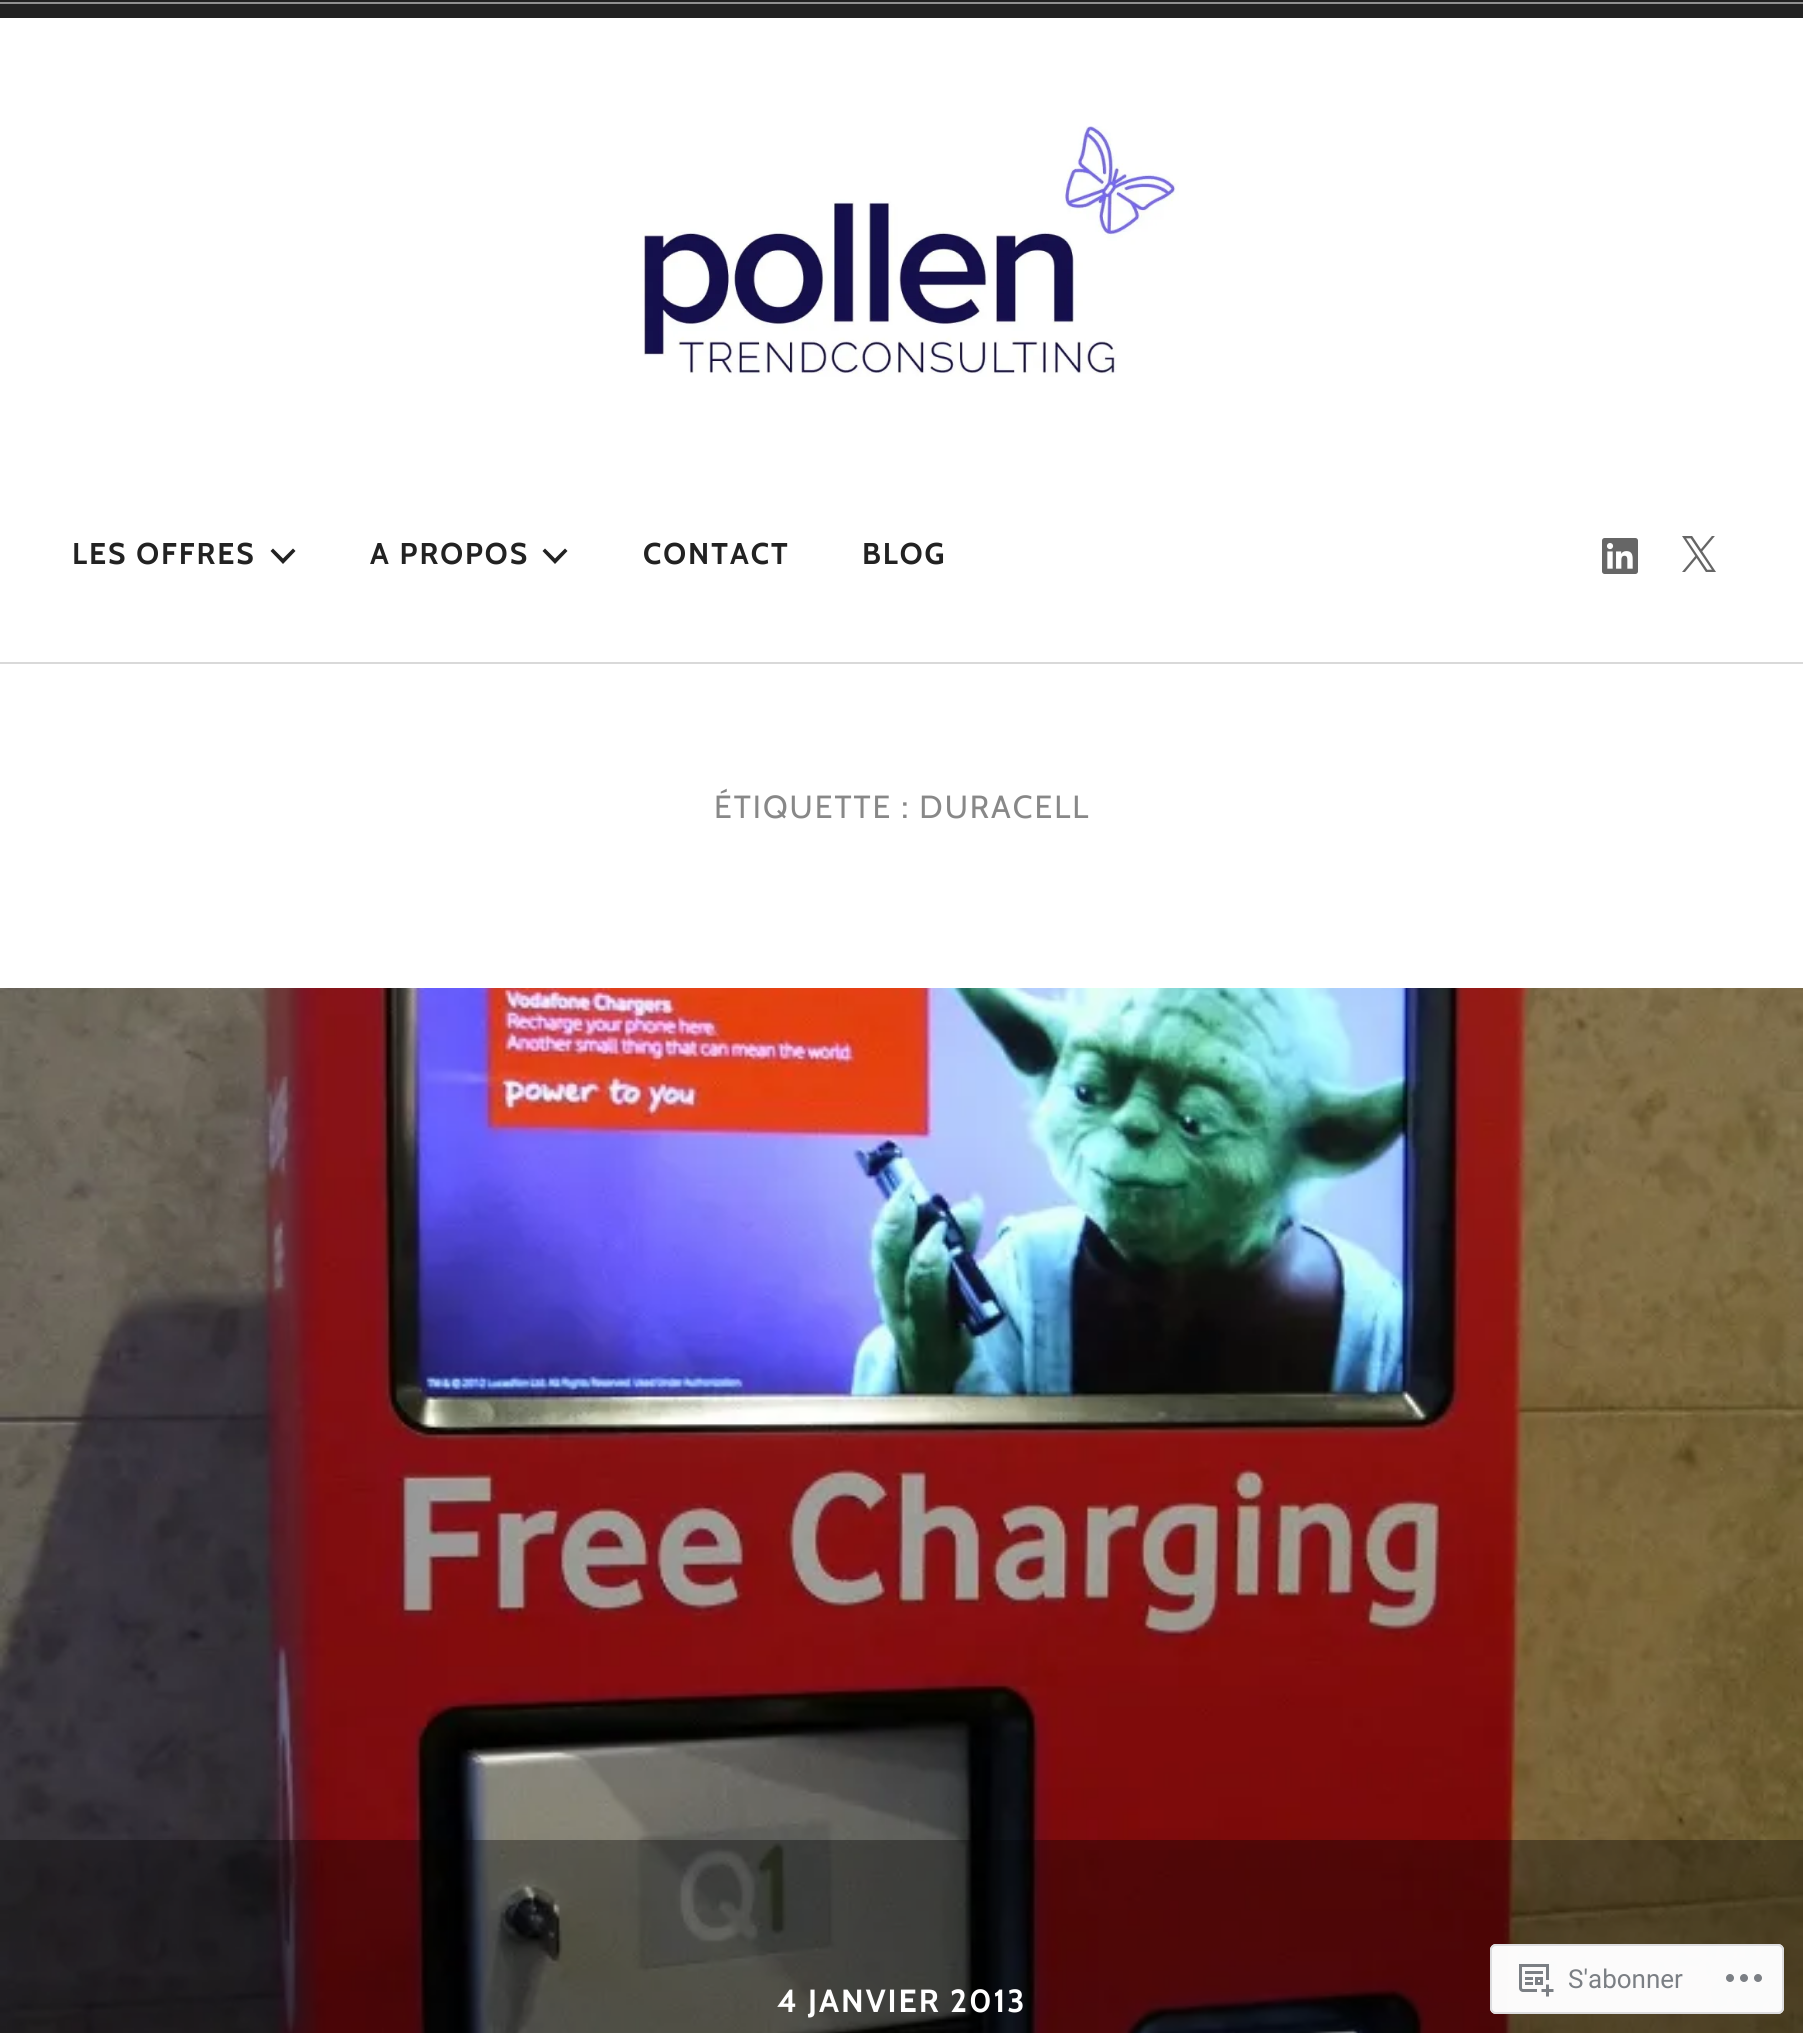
#include <cairo.h>
#include <math.h>
#include <stddef.h>

typedef struct { const char *family; double size; int italic, bold; unsigned color; } style_t;
static cairo_t *ctx;

static void ink(unsigned color) {
    cairo_set_source_rgb(ctx, (color >> 16) / 255.0, (color >> 8 & 255) / 255.0, (color & 255) / 255.0);
}

static void write(double x, double y, const char *s, const style_t *st) {
    cairo_select_font_face(ctx, st->family, st->italic ? CAIRO_FONT_SLANT_ITALIC : CAIRO_FONT_SLANT_NORMAL,
        st->bold ? CAIRO_FONT_WEIGHT_BOLD : CAIRO_FONT_WEIGHT_NORMAL);
    cairo_set_font_size(ctx, st->size);
    ink(st->color);
    cairo_move_to(ctx, x, y);
    cairo_show_text(ctx, s);
}

static void write_spaced(double x, double y, const char *s, double letter, double word) {
    cairo_move_to(ctx, x, y);
    while (*s) {
        char ch[5] = {0};
        int n = 0;
        do ch[n++] = *s++; while ((*s & 0xC0) == 0x80);
        cairo_show_text(ctx, ch);
        cairo_rel_move_to(ctx, letter + word * (*ch == ' '), 0);
    }
}

static void block(double x, double y, double w, double h, unsigned color) {
    ink(color);
    cairo_rectangle(ctx, x, y, w, h);
    cairo_fill(ctx);
}

static void round_path(double x, double y, double w, double h, double r) {
    cairo_new_sub_path(ctx);
    cairo_arc(ctx, x + w - r, y + h - r, r, 0, M_PI / 2);
    cairo_arc(ctx, x + r, y + h - r, r, M_PI / 2, M_PI);
    cairo_arc(ctx, x + r, y + r, r, M_PI, 1.5 * M_PI);
    cairo_arc(ctx, x + w - r, y + r, r, 1.5 * M_PI, 2 * M_PI);
    cairo_close_path(ctx);
}

static void paste(const char *path, double x, double y, double w, double h) {
    cairo_surface_t *image = cairo_image_surface_create_from_png(path);
    cairo_save(ctx);
    cairo_set_source_surface(ctx, image, x, y);
    cairo_rectangle(ctx, x, y, w, h);
    cairo_fill(ctx);
    cairo_restore(ctx);
    cairo_surface_destroy(image);
}

static const style_t s1 = {"Roboto", 26, 0, 0, 0x7b7f84};

int main(void) {
    cairo_surface_t *surface = cairo_image_surface_create(CAIRO_FORMAT_RGB24, 1803, 2033);
    ctx = cairo_create(surface);
    cairo_font_options_t *options = cairo_font_options_create();
    cairo_font_options_set_hint_metrics(options, CAIRO_HINT_METRICS_OFF);
    cairo_font_options_set_hint_style(options, CAIRO_HINT_STYLE_NONE);
    cairo_set_font_options(ctx, options);
    cairo_set_miter_limit(ctx, 4);
    ink(0xffffff);
    cairo_paint(ctx);
    block(0, 0, 1803, 18, 0x222222);
    block(0, 2, 1803, 2, 0x919191);
    paste("pic1.png", 641, 126, 538, 251);
    cairo_select_font_face(ctx, "Cabin", CAIRO_FONT_SLANT_NORMAL, CAIRO_FONT_WEIGHT_BOLD);
    cairo_set_font_size(ctx, 30);
    ink(0x222222);
    write_spaced(72, 564, "LES OFFRES", 2, 0);
    cairo_new_path(ctx);
    cairo_move_to(ctx, 283, 564);
    cairo_line_to(ctx, 270.5, 551);
    cairo_line_to(ctx, 273, 548.5);
    cairo_line_to(ctx, 283, 558.5);
    cairo_line_to(ctx, 293, 548.5);
    cairo_line_to(ctx, 295.5, 551);
    cairo_close_path(ctx);
    cairo_fill(ctx);
    write_spaced(370, 564, "A PROPOS", 2, 0);
    cairo_new_path(ctx);
    cairo_move_to(ctx, 555, 564);
    cairo_line_to(ctx, 542.5, 551);
    cairo_line_to(ctx, 545, 548.5);
    cairo_line_to(ctx, 555, 558.5);
    cairo_line_to(ctx, 565, 548.5);
    cairo_line_to(ctx, 567.5, 551);
    cairo_close_path(ctx);
    cairo_fill(ctx);
    write_spaced(643, 564, "CONTACT", 2, 0);
    write_spaced(862, 564, "BLOG", 2, 0);
    paste("pic2.png", 1602, 538, 36, 36);
    paste("pic3.png", 1682, 536, 34, 36);
    block(0, 662, 1803, 2, 0xd9d9d9);
    cairo_select_font_face(ctx, "Cabin", CAIRO_FONT_SLANT_NORMAL, CAIRO_FONT_WEIGHT_NORMAL);
    cairo_set_font_size(ctx, 32);
    ink(0x888888);
    write_spaced(714, 818, "ÉTIQUETTE : DURACELL", 2, 0);
    paste("pic4.png", 0, 988, 1803, 1045);
    cairo_set_source_rgba(ctx, 0, 0, 0, 0.35);
    cairo_rectangle(ctx, 0, 1840, 1803, 193);
    cairo_fill(ctx);
    cairo_select_font_face(ctx, "Cabin", CAIRO_FONT_SLANT_NORMAL, CAIRO_FONT_WEIGHT_BOLD);
    ink(0xffffff);
    write_spaced(777, 2012, "4 JANVIER 2013", 2, 0);
    cairo_set_source_rgba(ctx, 1, 1, 1, 0.98);
    round_path(1490, 1944, 294, 70, 6);
    cairo_fill(ctx);
    round_path(1491, 1945, 292, 68, 5);
    cairo_set_source_rgba(ctx, 0.863, 0.863, 0.871, 0.98);
    cairo_stroke(ctx);
    paste("pic5.png", 1519, 1964, 35, 33);
    write(1568, 1988, "S'abonner", &s1);
    paste("pic6.png", 1726, 1974, 36, 8);
    cairo_surface_write_to_png(surface, "screenshot.png");
    cairo_font_options_destroy(options);
    cairo_destroy(ctx);
    cairo_surface_destroy(surface);
    return 0;
}
